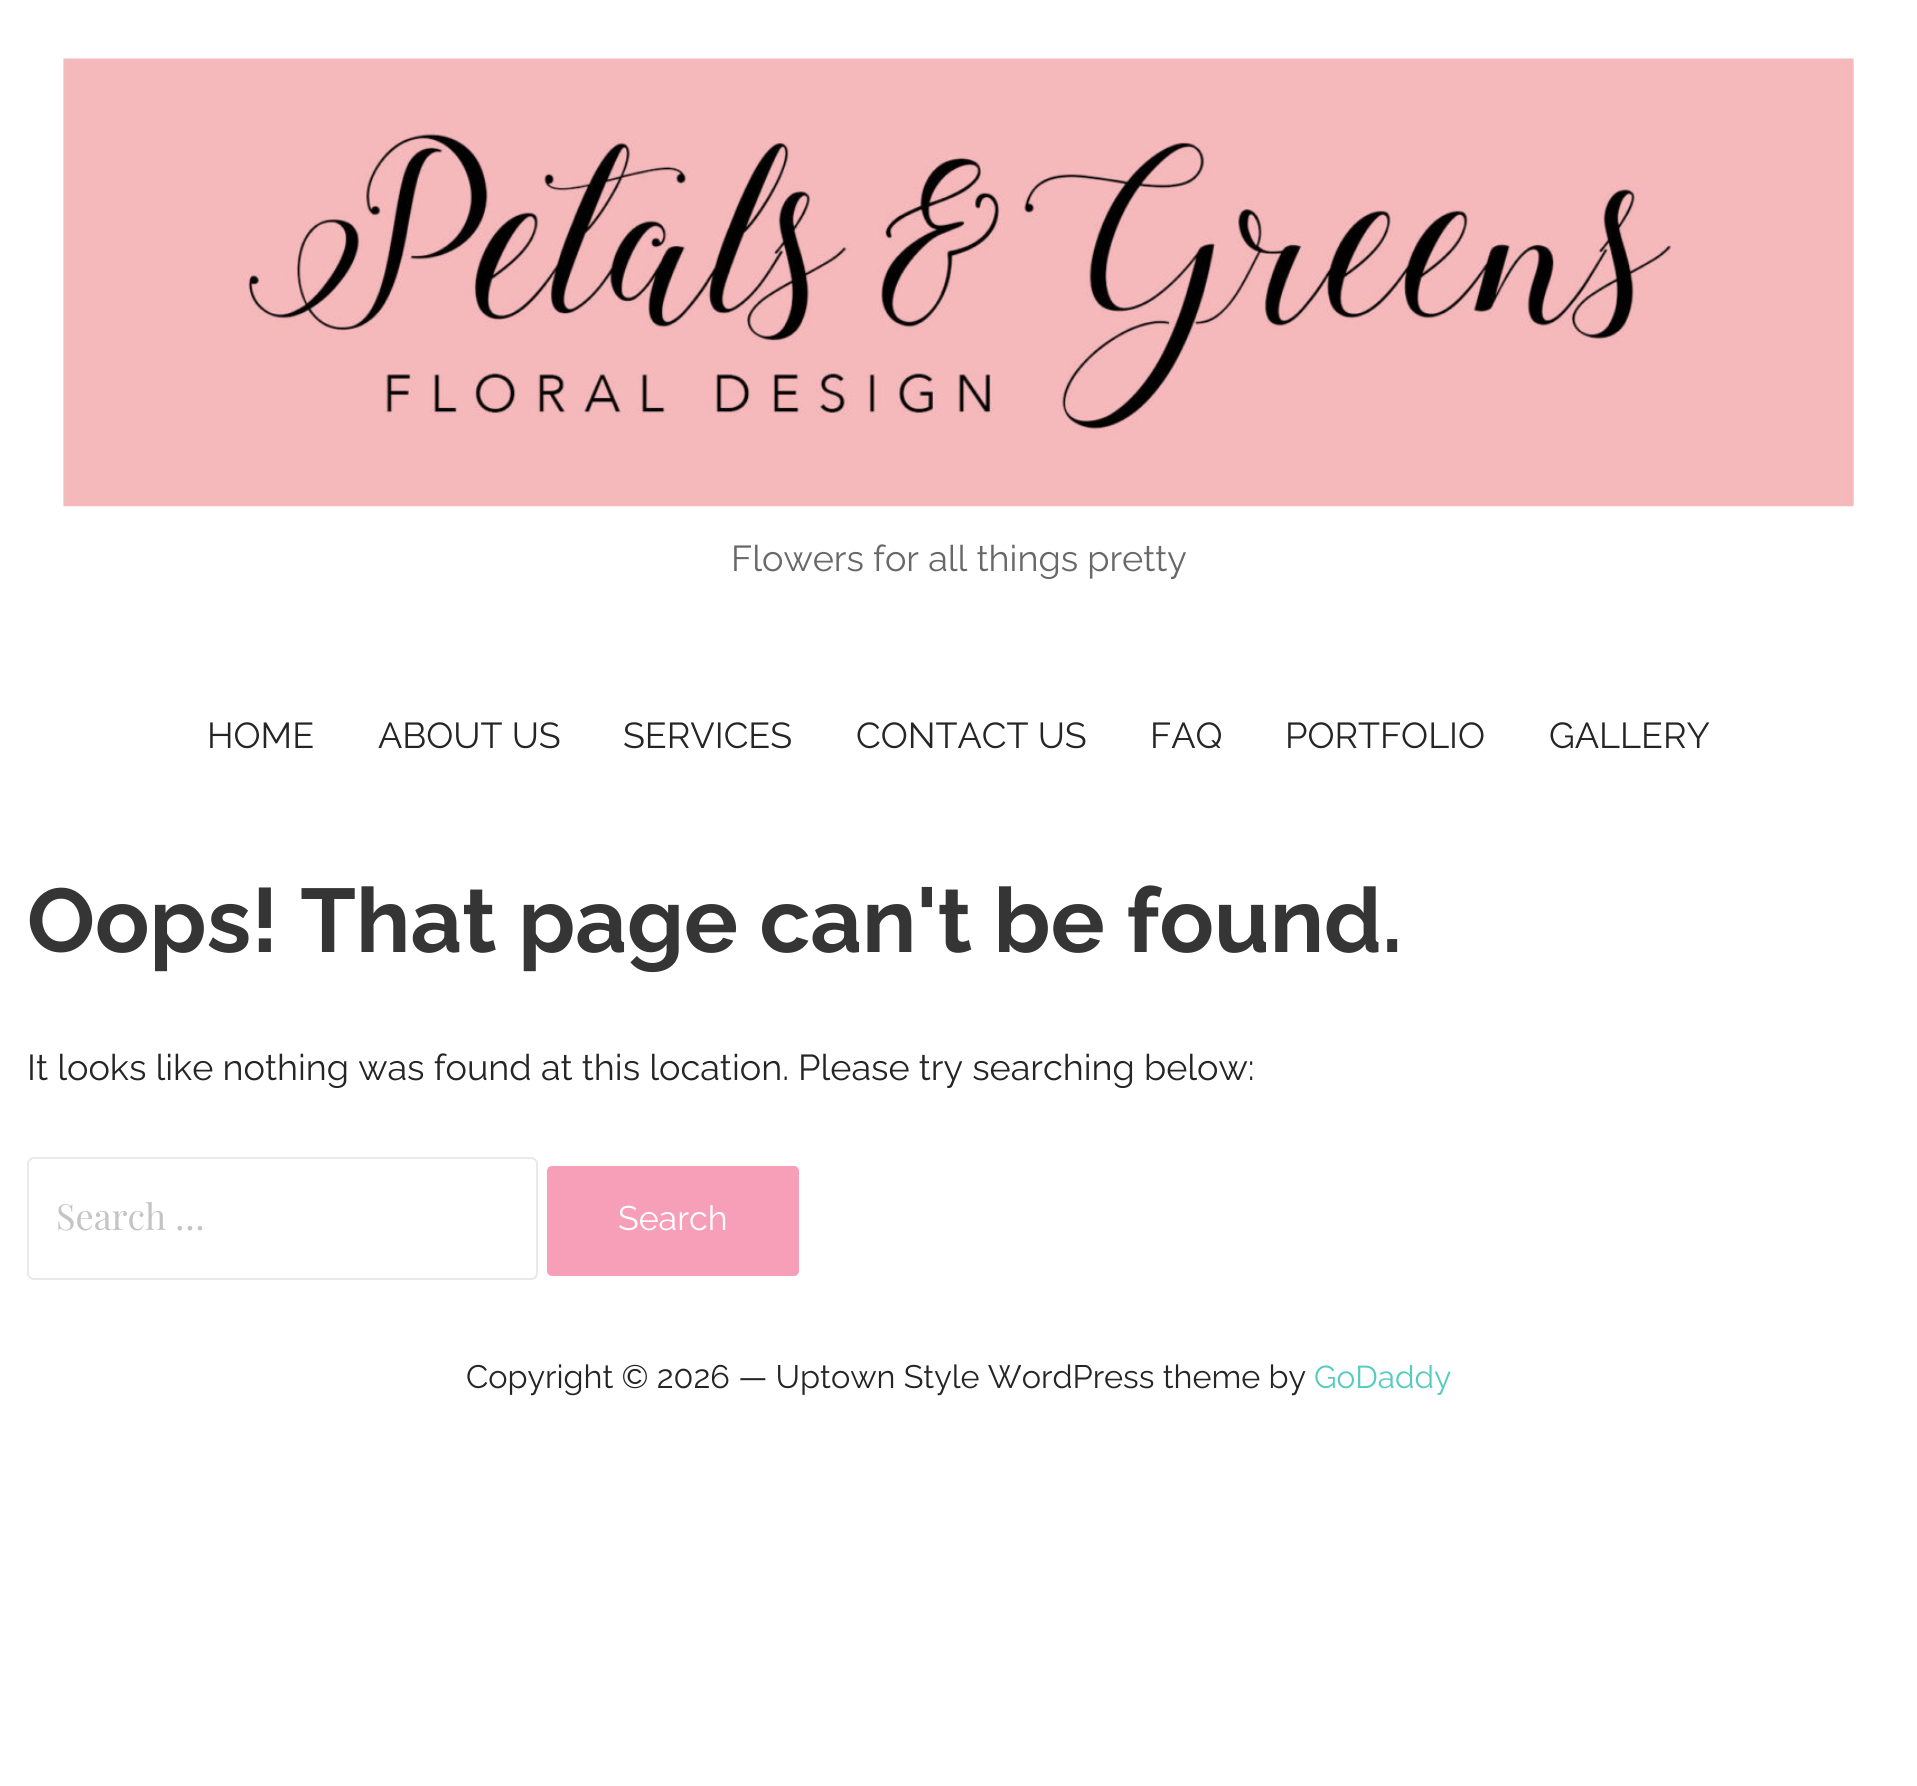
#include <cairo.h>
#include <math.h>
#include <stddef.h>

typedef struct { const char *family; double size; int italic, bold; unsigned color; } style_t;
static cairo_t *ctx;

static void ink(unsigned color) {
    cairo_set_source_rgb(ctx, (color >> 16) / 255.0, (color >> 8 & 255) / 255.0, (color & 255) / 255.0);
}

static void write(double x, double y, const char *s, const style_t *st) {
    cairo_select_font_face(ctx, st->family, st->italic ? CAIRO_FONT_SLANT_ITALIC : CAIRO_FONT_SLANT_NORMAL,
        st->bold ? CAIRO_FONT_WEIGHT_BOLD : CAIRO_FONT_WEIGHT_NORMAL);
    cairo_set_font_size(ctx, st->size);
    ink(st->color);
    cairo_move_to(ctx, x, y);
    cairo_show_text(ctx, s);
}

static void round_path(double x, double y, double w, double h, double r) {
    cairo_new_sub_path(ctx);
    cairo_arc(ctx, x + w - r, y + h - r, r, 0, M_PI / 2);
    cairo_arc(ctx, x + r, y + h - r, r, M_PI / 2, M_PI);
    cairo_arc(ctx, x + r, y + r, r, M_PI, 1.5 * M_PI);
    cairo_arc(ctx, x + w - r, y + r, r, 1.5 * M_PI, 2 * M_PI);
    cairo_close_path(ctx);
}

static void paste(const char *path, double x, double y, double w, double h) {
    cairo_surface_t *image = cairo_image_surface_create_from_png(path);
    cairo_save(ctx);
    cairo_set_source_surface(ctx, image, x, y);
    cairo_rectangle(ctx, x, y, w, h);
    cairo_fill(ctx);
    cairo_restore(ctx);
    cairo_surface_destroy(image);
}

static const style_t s1 = {"Raleway", 36, 0, 0, 0x686868};
static const style_t s2 = {"Raleway", 36, 0, 0, 0x252525};
static const style_t s3 = {"Raleway", 90, 0, 1, 0x353535};
static const style_t s4 = {"Playfair Display", 36, 0, 0, 0xc4c4c4};
static const style_t s5 = {"Raleway", 34, 0, 0, 0xffffff};
static const style_t s6 = {"Raleway", 32.4, 0, 0, 0x252525};
static const style_t s7 = {"Raleway", 31.5, 0, 0, 0x54ccbe};

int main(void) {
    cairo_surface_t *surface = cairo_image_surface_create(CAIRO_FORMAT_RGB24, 1917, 1786);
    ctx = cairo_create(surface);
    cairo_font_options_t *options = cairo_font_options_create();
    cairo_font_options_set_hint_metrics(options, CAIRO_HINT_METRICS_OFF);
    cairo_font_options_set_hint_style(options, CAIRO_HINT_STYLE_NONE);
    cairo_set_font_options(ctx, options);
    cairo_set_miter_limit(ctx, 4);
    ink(0xffffff);
    cairo_paint(ctx);
    paste("pic1.png", 63, 58, 1791, 449);
    write(731, 571, "Flowers for all things pretty", &s1);
    write(207, 748, "HOME", &s2);
    write(378, 748, "ABOUT US", &s2);
    write(623, 748, "SERVICES", &s2);
    write(856, 748, "CONTACT US", &s2);
    write(1150, 748, "FAQ", &s2);
    write(1285, 748, "PORTFOLIO", &s2);
    write(1549, 748, "GALLERY", &s2);
    write(27, 952, "Oops! That page can't be found.", &s3);
    write(27, 1080, "It looks like nothing was found at this location. Please try searching below:", &s2);
    round_path(28, 1158, 509, 121, 6);
    ink(0xe9e9e9);
    cairo_stroke(ctx);
    write(56, 1230, "Search …", &s4);
    ink(0xf79eb9);
    round_path(547, 1166, 252, 110, 5);
    cairo_fill(ctx);
    write(618, 1230, "Search", &s5);
    write(466, 1388, "Copyright © 2026 — Uptown Style WordPress theme by", &s6);
    write(1314, 1388, "GoDaddy", &s7);
    cairo_surface_write_to_png(surface, "screenshot.png");
    cairo_font_options_destroy(options);
    cairo_destroy(ctx);
    cairo_surface_destroy(surface);
    return 0;
}
